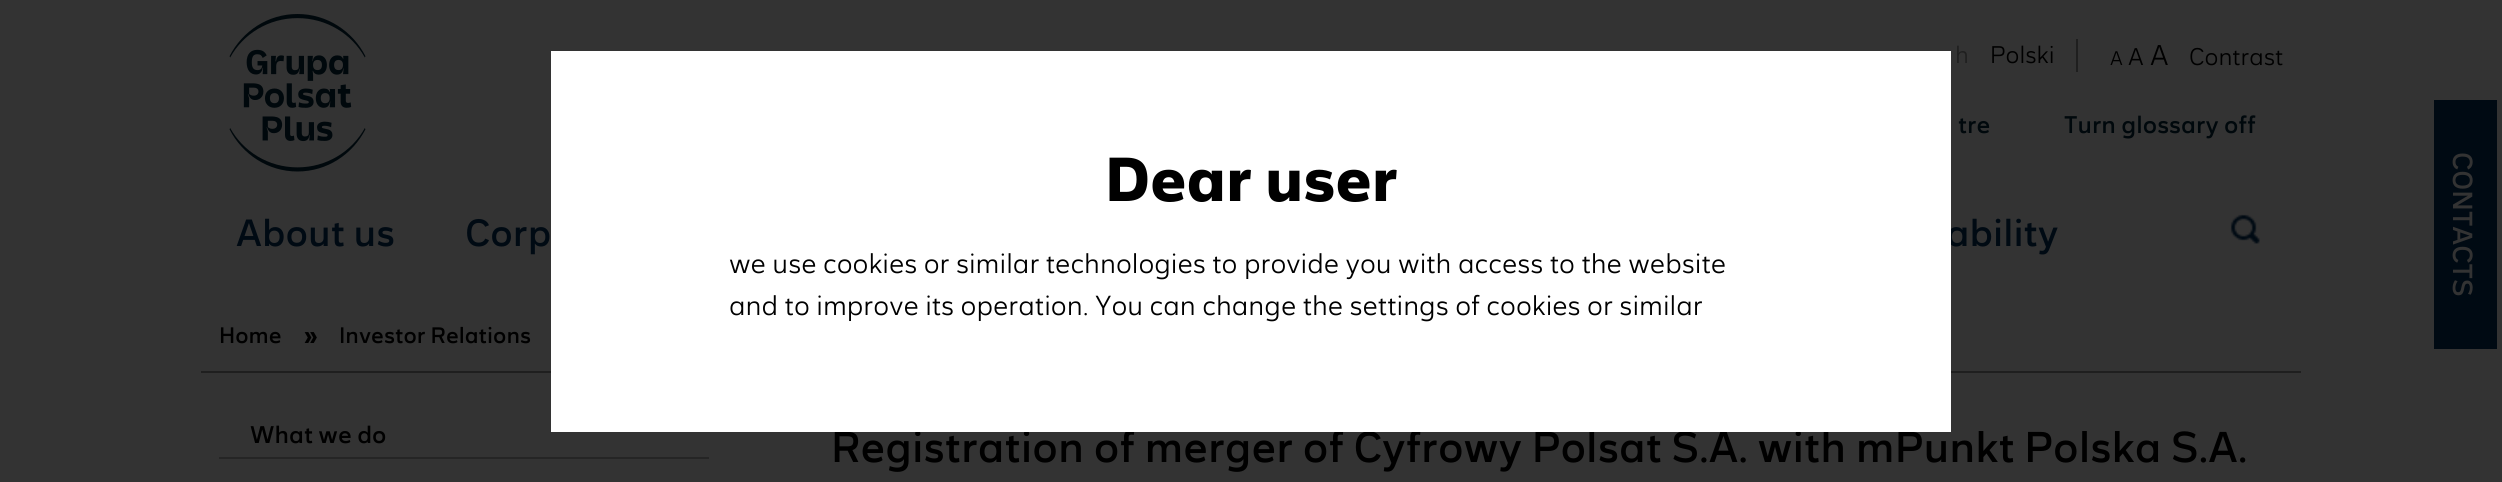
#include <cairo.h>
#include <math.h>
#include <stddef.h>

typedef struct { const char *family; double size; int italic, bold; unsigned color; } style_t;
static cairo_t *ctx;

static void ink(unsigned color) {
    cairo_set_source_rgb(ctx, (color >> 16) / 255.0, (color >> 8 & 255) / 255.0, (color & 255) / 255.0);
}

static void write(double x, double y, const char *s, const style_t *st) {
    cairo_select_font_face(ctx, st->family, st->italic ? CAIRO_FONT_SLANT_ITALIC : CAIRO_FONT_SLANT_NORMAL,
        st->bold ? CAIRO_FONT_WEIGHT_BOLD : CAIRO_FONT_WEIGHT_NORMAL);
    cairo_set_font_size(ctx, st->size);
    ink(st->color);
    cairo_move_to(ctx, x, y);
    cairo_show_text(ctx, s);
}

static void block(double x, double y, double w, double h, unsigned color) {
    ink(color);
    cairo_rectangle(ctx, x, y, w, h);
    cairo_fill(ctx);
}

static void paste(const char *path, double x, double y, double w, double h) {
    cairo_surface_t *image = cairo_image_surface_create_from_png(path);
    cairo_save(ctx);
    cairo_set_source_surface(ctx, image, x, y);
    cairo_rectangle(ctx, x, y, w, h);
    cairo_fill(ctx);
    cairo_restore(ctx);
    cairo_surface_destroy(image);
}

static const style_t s1 = {"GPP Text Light", 24.5, 0, 0, 0x1f1f1f};
static const style_t s2 = {"GPP Text Light", 24.5, 0, 0, 0x000000};
static const style_t s3 = {"GPP Text Light", 20, 0, 0, 0x000000};
static const style_t s4 = {"GPP Text Light", 29, 0, 0, 0x000000};
static const style_t s5 = {"GPP Text", 24.5, 0, 0, 0x00080c};
static const style_t s6 = {"GPP Text", 28, 0, 0, 0x333333};
static const style_t s7 = {"GPP Text", 24.5, 0, 0, 0x000000};
static const style_t s8 = {"GPP Text", 43.75, 0, 0, 0x000000};
static const style_t s9 = {"GPP Text", 38.5, 0, 0, 0x000a13};
static const style_t s10 = {"GPP Text", 22.75, 0, 0, 0x000000};
static const style_t s11 = {"GPP Text", 22.75, 0, 1, 0x000000};
static const style_t s12 = {"GPP Text", 63, 0, 1, 0x000000};
static const style_t s13 = {"GPP Text Light", 28, 0, 0, 0x000000};

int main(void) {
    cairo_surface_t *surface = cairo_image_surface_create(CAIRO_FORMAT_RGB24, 2502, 482);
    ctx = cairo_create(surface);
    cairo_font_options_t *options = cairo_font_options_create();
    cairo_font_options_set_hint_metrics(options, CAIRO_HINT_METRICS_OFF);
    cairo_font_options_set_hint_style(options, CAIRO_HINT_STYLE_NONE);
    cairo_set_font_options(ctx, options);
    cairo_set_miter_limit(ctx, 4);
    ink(0x333333);
    cairo_paint(ctx);
    paste("pic1.png", 229, 14, 137, 158);
    write(1955, 63, "h", &s1);
    write(1990, 63, "Polski", &s2);
    block(2076, 39, 2, 33, 0x1f1f1f);
    write(2110, 65, "A", &s3);
    write(2128, 65, "A", &s2);
    write(2150, 65, "A", &s4);
    write(2189, 65, "Contrast", &s2);
    write(1958, 133, "tre", &s5);
    write(2064, 133, "Turn glossary off", &s5);
    block(2434, 100, 63, 249, 0x000a13);
    cairo_save(ctx);
    cairo_translate(ctx, 2453, 152);
    cairo_rotate(ctx, 90 * M_PI / 180);
    write(0, 0, "CONTACTS", &s6);
    cairo_restore(ctx);
    block(219, 457, 490, 2, 0x252525);
    write(250, 443, "What we do", &s7);
    write(831, 462, "Registration of merger of Cyfrowy Polsat S.A. with mPunkt Polska S.A.", &s8);
    write(236, 246, "About us", &s9);
    write(465, 246, "Corp", &s9);
    write(1946, 246, "ability", &s9);
    paste("pic2.png", 2230, 214, 30, 30);
    block(201, 371, 2100, 2, 0x1f1f1f);
    write(219, 343, "Home", &s10);
    write(304, 343, "»", &s11);
    write(339, 343, "Investor Relations", &s10);
    block(551, 51, 1400, 381, 0xffffff);
    write(1105, 201, "Dear user", &s12);
    write(729, 273, "we use cookies or similar technologies to provide you with access to the website", &s13);
    write(729, 315, "and to improve its operation. You can change the settings of cookies or similar", &s13);
    cairo_surface_write_to_png(surface, "screenshot.png");
    cairo_font_options_destroy(options);
    cairo_destroy(ctx);
    cairo_surface_destroy(surface);
    return 0;
}
